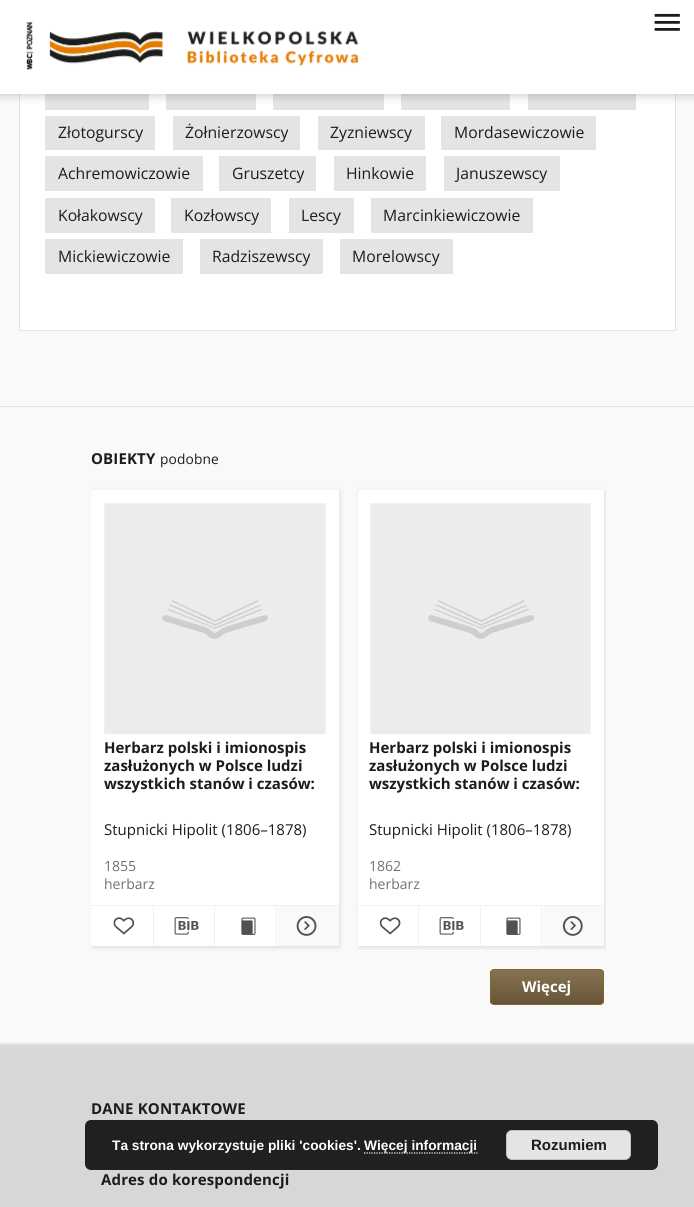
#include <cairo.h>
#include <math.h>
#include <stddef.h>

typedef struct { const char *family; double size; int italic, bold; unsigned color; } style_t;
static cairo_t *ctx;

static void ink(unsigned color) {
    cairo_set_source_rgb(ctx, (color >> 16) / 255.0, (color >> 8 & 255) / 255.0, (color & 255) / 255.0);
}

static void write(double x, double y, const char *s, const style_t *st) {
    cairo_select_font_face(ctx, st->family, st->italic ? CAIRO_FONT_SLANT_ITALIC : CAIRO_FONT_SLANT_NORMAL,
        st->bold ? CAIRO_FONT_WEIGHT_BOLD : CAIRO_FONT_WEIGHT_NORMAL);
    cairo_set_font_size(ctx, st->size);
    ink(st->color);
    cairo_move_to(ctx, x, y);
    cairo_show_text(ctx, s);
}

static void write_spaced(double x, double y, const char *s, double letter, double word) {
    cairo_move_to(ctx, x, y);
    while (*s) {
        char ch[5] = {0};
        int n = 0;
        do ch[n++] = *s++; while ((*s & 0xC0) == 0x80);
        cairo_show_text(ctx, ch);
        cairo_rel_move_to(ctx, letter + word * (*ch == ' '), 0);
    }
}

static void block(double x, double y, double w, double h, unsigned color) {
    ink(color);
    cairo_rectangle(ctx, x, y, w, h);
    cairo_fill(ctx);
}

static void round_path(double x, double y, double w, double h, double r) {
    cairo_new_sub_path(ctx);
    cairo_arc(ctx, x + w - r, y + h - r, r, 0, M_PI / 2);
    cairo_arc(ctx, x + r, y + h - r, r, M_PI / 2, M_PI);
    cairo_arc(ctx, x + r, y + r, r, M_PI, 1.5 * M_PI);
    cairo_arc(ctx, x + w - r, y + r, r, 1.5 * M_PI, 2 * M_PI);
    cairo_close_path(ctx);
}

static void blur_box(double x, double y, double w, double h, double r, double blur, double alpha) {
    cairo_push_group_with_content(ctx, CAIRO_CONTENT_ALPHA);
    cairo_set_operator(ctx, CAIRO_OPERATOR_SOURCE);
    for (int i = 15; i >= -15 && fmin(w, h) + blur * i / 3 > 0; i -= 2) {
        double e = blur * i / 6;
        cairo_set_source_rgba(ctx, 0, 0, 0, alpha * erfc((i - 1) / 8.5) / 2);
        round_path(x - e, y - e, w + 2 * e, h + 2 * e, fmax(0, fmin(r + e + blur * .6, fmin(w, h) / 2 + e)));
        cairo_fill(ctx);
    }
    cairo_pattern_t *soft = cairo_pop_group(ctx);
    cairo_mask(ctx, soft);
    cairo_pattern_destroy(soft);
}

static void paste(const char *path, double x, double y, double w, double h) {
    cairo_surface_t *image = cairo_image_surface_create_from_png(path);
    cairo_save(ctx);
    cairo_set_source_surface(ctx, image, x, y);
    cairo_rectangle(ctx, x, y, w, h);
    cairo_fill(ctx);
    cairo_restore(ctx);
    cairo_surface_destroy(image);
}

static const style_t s1 = {"Open Sans", 15.75, 0, 0, 0x1c1c1c};
static const style_t s2 = {"Open Sans", 15, 0, 1, 0x1c1c1c};
static const style_t s3 = {"Open Sans", 15, 0, 0, 0x1c1c1c};
static const style_t s4 = {"Open Sans", 14, 0, 0, 0x707070};
static const style_t s5 = {"Open Sans", 15, 0, 1, 0xffffff};
static const style_t s6 = {"Liberation Sans", 13.75, 0, 1, 0xffffff};
static const style_t s7 = {"Liberation Sans", 15, 0, 1, 0x1c1c1c};

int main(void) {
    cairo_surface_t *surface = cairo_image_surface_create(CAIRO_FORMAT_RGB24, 694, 1207);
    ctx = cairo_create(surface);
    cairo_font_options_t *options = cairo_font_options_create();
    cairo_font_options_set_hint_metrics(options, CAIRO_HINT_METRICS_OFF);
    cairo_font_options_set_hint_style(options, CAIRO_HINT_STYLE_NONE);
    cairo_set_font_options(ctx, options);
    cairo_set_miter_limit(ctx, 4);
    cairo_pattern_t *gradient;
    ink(0xf9f9f9);
    cairo_paint(ctx);
    block(20, 94, 655, 236, 0xffffff);
    block(675, 94, 1, 237, 0xe4e4e4);
    block(19, 330, 657, 1, 0xe4e4e4);
    block(19, 94, 1, 237, 0xe4e4e4);
    block(45, 94, 104, 16, 0xe4e4e4);
    block(166, 94, 90, 16, 0xe4e4e4);
    block(273, 94, 111, 16, 0xe4e4e4);
    block(401, 94, 109, 16, 0xe4e4e4);
    block(528, 94, 108, 16, 0xe4e4e4);
    ink(0x000000);
    blur_box(0, 1, 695, 94, 0, 6, 0.08);
    blur_box(0, 5, 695, 94, 0, 3, 0.06);
    blur_box(1, 4, 693, 91, 0, 2.5, 0.06);
    block(0, 0, 694, 94, 0xffffff);
    paste("pic1.png", 26, 22, 333, 48);
    paste("pic2.png", 654, 13, 26, 18);
    block(45, 116, 110, 34, 0xe4e4e4);
    write(58, 138, "Złotogurscy", &s1);
    block(173, 116, 127, 34, 0xe4e4e4);
    write(185, 138, "Żołnierzowscy", &s1);
    block(318, 116, 107, 34, 0xe4e4e4);
    write(330, 138, "Zyzniewscy", &s1);
    block(441, 116, 155, 34, 0xe4e4e4);
    write(454, 138, "Mordasewiczowie", &s1);
    block(45, 156, 158, 35, 0xe4e4e4);
    write(58, 179, "Achremowiczowie", &s1);
    block(219, 156, 97, 35, 0xe4e4e4);
    write(232, 179, "Gruszetcy", &s1);
    block(334, 156, 92, 35, 0xe4e4e4);
    write(346, 179, "Hinkowie", &s1);
    block(444, 156, 116, 35, 0xe4e4e4);
    write(456, 179, "Januszewscy", &s1);
    block(45, 198, 110, 35, 0xe4e4e4);
    write(58, 221, "Kołakowscy", &s1);
    block(171, 198, 100, 35, 0xe4e4e4);
    write(184, 221, "Kozłowscy", &s1);
    block(289, 198, 65, 35, 0xe4e4e4);
    write(301, 221, "Lescy", &s1);
    block(371, 198, 162, 35, 0xe4e4e4);
    write(383, 221, "Marcinkiewiczowie", &s1);
    block(45, 239, 138, 35, 0xe4e4e4);
    write(58, 262, "Mickiewiczowie", &s1);
    block(200, 239, 123, 35, 0xe4e4e4);
    write(212, 262, "Radziszewscy", &s1);
    block(340, 239, 113, 35, 0xe4e4e4);
    write(352, 262, "Morelowscy", &s1);
    block(0, 406, 694, 1, 0xe4e4e4);
    block(0, 1043, 694, 2, 0xe4e4e4);
    cairo_select_font_face(ctx, "Open Sans", CAIRO_FONT_SLANT_NORMAL, CAIRO_FONT_WEIGHT_BOLD);
    cairo_set_font_size(ctx, 15);
    ink(0x1c1c1c);
    write_spaced(91, 464, "OBIEKTY", 0.15, 0);
    cairo_select_font_face(ctx, "Open Sans", CAIRO_FONT_SLANT_NORMAL, CAIRO_FONT_WEIGHT_NORMAL);
    cairo_set_font_size(ctx, 13.75);
    write_spaced(160, 464, "podobne", 0.15, 0);
    ink(0xdedede);
    blur_box(93, 491, 247, 457, 0, 2, 1);
    block(91, 490, 248, 456, 0xffffff);
    block(105, 504, 220, 230, 0xececec);
    cairo_rectangle(ctx, 104.5, 503.5, 221, 242);
    ink(0xf1f1f1);
    cairo_set_line_width(ctx, 1);
    cairo_stroke(ctx);
    paste("pic3.png", 162, 600, 106, 39);
    block(104, 734, 222, 12, 0xffffff);
    write(104, 753, "Herbarz polski i imionospis", &s2);
    write(104, 771, "zasłużonych w Polsce ludzi", &s2);
    write(104, 789, "wszystkich stanów i czasów:", &s2);
    write(104, 835, "Stupnicki Hipolit (1806–1878)", &s3);
    write(104, 871, "1855", &s4);
    write(104, 889, "herbarz", &s4);
    block(91, 905, 248, 1, 0xf1f1f1);
    block(153, 906, 1, 40, 0xf1f1f1);
    paste("pic4.png", 113, 917, 22, 18);
    block(214, 906, 1, 40, 0xf1f1f1);
    paste("pic5.png", 174, 917, 25, 18);
    block(276, 906, 1, 40, 0xf1f1f1);
    paste("pic6.png", 241, 917, 15, 18);
    block(278, 906, 61, 40, 0xf9f9f9);
    paste("pic7.png", 296, 916, 21, 20);
    cairo_save(ctx);
    cairo_rectangle(ctx, 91, 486, 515, 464);
    cairo_clip(ctx);
    ink(0xdedede);
    blur_box(359, 491, 246, 457, 0, 2, 1);
    cairo_restore(ctx);
    block(358, 490, 246, 456, 0xffffff);
    block(371, 504, 219, 230, 0xececec);
    cairo_rectangle(ctx, 370.5, 503.5, 220, 242);
    ink(0xf1f1f1);
    cairo_stroke(ctx);
    paste("pic8.png", 428, 600, 106, 39);
    block(370, 734, 221, 12, 0xffffff);
    write(369, 753, "Herbarz polski i imionospis", &s2);
    write(369, 771, "zasłużonych w Polsce ludzi", &s2);
    write(369, 789, "wszystkich stanów i czasów:", &s2);
    write(369, 835, "Stupnicki Hipolit (1806–1878)", &s3);
    write(369, 871, "1862", &s4);
    write(369, 889, "herbarz", &s4);
    block(358, 905, 246, 1, 0xf1f1f1);
    block(418, 906, 1, 40, 0xf1f1f1);
    paste("pic9.png", 379, 917, 22, 18);
    block(480, 906, 1, 40, 0xf1f1f1);
    paste("pic5.png", 439, 917, 25, 18);
    block(541, 906, 1, 40, 0xf1f1f1);
    paste("pic6.png", 506, 917, 15, 18);
    block(543, 906, 61, 40, 0xf9f9f9);
    paste("pic10.png", 562, 916, 21, 20);
    cairo_save(ctx);
    round_path(490, 969, 114, 36, 4);
    cairo_clip(ctx);
    gradient = cairo_pattern_create_linear(547, 970, 547, 1004);
    cairo_pattern_add_color_stop_rgba(gradient, 0, 0.525, 0.451, 0.329, 1);
    cairo_pattern_add_color_stop_rgba(gradient, 1, 0.404, 0.333, 0.216, 1);
    cairo_set_source(ctx, gradient);
    cairo_pattern_destroy(gradient);
    cairo_rectangle(ctx, 490, 970, 114, 34);
    cairo_fill(ctx);
    cairo_restore(ctx);
    round_path(490.5, 969.5, 113, 35, 3.5);
    ink(0x85652e);
    cairo_stroke(ctx);
    write(522, 992, "Więcej", &s5);
    block(0, 1045, 694, 162, 0xd7d7d7);
    ink(0x1c1c1c);
    write_spaced(91, 1114, "DANE KONTAKTOWE", 0.15, 0);
    write_spaced(101, 1185, "Adres do korespondencji", 0.15, 0);
    ink(0x202020);
    round_path(85, 1120, 573, 50, 6);
    cairo_fill(ctx);
    write(112, 1150, "Ta strona wykorzystuje pliki 'cookies'.", &s6);
    cairo_new_path(ctx);
    cairo_move_to(ctx, 364, 1153);
    cairo_line_to(ctx, 477.5, 1153);
    cairo_set_line_width(ctx, 1.2);
    cairo_set_dash(ctx, (double[]){1.25, 1.25}, 2, 0);
    cairo_stroke(ctx);
    write(364, 1150, "Więcej informacji", &s6);
    ink(0xe4e4e4);
    round_path(506.5, 1130.5, 124, 29, 5.5);
    cairo_fill_preserve(ctx);
    ink(0xc1c1c1);
    cairo_set_line_width(ctx, 1);
    cairo_set_dash(ctx, NULL, 0, 0);
    cairo_stroke(ctx);
    write(531, 1150, "Rozumiem", &s7);
    cairo_surface_write_to_png(surface, "screenshot.png");
    cairo_font_options_destroy(options);
    cairo_destroy(ctx);
    cairo_surface_destroy(surface);
    return 0;
}
